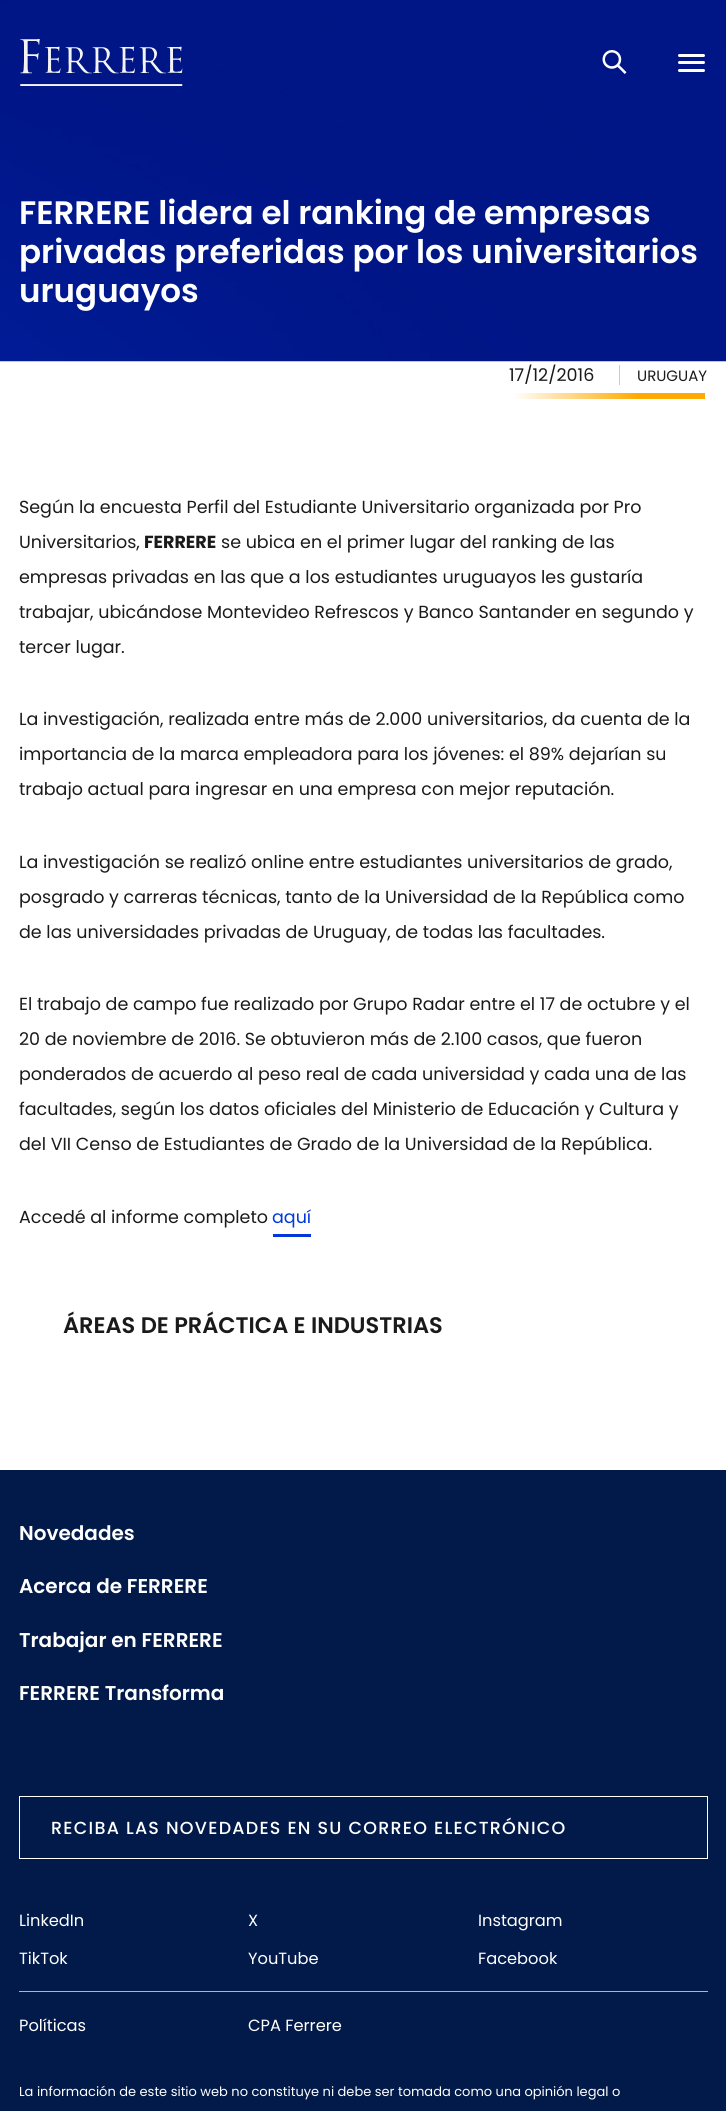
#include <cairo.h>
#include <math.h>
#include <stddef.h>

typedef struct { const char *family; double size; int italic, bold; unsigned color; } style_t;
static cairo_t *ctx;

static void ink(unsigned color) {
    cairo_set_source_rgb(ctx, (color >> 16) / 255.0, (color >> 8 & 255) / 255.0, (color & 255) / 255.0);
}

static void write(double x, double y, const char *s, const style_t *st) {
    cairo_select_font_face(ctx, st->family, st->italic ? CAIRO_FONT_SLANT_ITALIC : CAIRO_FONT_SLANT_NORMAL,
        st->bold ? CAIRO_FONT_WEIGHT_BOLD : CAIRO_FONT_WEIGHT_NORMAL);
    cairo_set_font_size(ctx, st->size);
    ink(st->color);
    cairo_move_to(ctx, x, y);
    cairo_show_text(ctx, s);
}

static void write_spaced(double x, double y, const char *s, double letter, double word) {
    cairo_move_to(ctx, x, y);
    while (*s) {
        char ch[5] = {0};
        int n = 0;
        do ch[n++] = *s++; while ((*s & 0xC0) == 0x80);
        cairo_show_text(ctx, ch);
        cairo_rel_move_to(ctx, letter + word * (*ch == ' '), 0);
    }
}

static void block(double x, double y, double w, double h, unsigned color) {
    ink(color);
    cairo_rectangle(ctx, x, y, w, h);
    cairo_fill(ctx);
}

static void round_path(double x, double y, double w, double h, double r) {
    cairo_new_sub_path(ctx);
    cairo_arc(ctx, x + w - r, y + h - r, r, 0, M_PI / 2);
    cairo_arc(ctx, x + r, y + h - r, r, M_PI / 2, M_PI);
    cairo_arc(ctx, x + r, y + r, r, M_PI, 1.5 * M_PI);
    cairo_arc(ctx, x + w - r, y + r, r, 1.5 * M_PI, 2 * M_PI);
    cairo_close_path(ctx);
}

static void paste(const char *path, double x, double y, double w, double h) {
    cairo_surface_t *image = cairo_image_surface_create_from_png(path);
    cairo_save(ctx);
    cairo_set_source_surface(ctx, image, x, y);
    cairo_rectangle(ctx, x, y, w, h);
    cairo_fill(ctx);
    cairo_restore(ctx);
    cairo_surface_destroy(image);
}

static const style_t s1 = {"Poppins SemiBold", 32.5, 0, 0, 0xffffff};
static const style_t s2 = {"Poppins", 17.5, 0, 0, 0x1a1a1a};
static const style_t s3 = {"Poppins", 15, 0, 0, 0x1a1a1a};
static const style_t s4 = {"Poppins", 17.5, 0, 1, 0x1a1a1a};
static const style_t s5 = {"Poppins", 17.5, 0, 0, 0x0038da};
static const style_t s6 = {"Poppins SemiBold", 22.5, 0, 0, 0x1a1a1a};
static const style_t s7 = {"Poppins SemiBold", 20, 0, 0, 0xffffff};
static const style_t s8 = {"Poppins", 16.25, 0, 0, 0xffffff};
static const style_t s9 = {"Poppins", 13, 0, 0, 0xffffff};

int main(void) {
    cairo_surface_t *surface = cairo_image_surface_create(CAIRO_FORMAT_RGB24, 726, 2111);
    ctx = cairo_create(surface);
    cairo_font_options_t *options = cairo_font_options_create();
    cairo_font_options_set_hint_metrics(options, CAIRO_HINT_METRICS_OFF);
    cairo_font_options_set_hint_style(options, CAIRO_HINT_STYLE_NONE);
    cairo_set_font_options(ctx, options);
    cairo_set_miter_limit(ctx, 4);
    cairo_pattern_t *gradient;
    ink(0xffffff);
    cairo_paint(ctx);
    paste("pic3.png", 0, 0, 726, 362);
    paste("pic1.png", 20, 39, 163, 47);
    paste("pic2.png", 602, 50, 25, 24);
    ink(0xffffff);
    round_path(678, 54, 27, 3, 1.5);
    cairo_fill(ctx);
    round_path(678, 61, 27, 3, 1.5);
    cairo_fill(ctx);
    round_path(678, 69, 27, 3, 1.5);
    cairo_fill(ctx);
    write(19, 224, "FERRERE lidera el ranking de empresas", &s1);
    write(19, 263, "privadas preferidas por los universitarios", &s1);
    write(19, 302, "uruguayos", &s1);
    write(509, 381, "17/12/2016", &s2);
    block(619, 365, 1, 20, 0xcccccc);
    write(637, 381, "URUGUAY", &s3);
    gradient = cairo_pattern_create_linear(705, 396, 513, 396);
    cairo_pattern_add_color_stop_rgba(gradient, 0.35, 1, 0.667, 0, 1);
    cairo_pattern_add_color_stop_rgba(gradient, 1, 1, 1, 1, 1);
    cairo_set_source(ctx, gradient);
    cairo_pattern_destroy(gradient);
    cairo_rectangle(ctx, 513, 393, 192, 6);
    cairo_fill(ctx);
    write(19, 513, "Según la encuesta Perfil del Estudiante Universitario organizada por Pro", &s2);
    write(19, 548, "Universitarios,", &s2);
    write(144, 548, "FERRERE", &s4);
    write(221, 548, "se ubica en el primer lugar del ranking de las", &s2);
    write(19, 583, "empresas privadas en las que a los estudiantes uruguayos les gustaría", &s2);
    write(19, 618, "trabajar, ubicándose Montevideo Refrescos y Banco Santander en segundo y", &s2);
    write(19, 653, "tercer lugar.", &s2);
    write(19, 725, "La investigación, realizada entre más de 2.000 universitarios, da cuenta de la", &s2);
    write(19, 760, "importancia de la marca empleadora para los jóvenes: el 89% dejarían su", &s2);
    write(19, 795, "trabajo actual para ingresar en una empresa con mejor reputación.", &s2);
    write(19, 868, "La investigación se realizó online entre estudiantes universitarios de grado,", &s2);
    write(19, 903, "posgrado y carreras técnicas, tanto de la Universidad de la República como", &s2);
    write(19, 938, "de las universidades privadas de Uruguay, de todas las facultades.", &s2);
    write(19, 1010, "El trabajo de campo fue realizado por Grupo Radar entre el 17 de octubre y el", &s2);
    write(19, 1045, "20 de noviembre de 2016. Se obtuvieron más de 2.100 casos, que fueron", &s2);
    write(19, 1080, "ponderados de acuerdo al peso real de cada universidad y cada una de las", &s2);
    write(19, 1115, "facultades, según los datos oficiales del Ministerio de Educación y Cultura y", &s2);
    write(19, 1150, "del VII Censo de Estudiantes de Grado de la Universidad de la República.", &s2);
    write(19, 1223, "Accedé al informe completo", &s2);
    write(272, 1223, "aquí", &s5);
    block(273, 1234, 38, 3, 0x0038da);
    write(63, 1333, "ÁREAS DE PRÁCTICA E INDUSTRIAS", &s6);
    block(0, 1470, 726, 641, 0x021a49);
    write(19, 1540, "Novedades", &s7);
    write(19, 1593, "Acerca de FERRERE", &s7);
    write(19, 1647, "Trabajar en FERRERE", &s7);
    write(19, 1700, "FERRERE Transforma", &s7);
    cairo_rectangle(ctx, 19.5, 1796.5, 688, 62);
    cairo_set_line_width(ctx, 1);
    cairo_stroke(ctx);
    cairo_select_font_face(ctx, "Poppins Medium", CAIRO_FONT_SLANT_NORMAL, CAIRO_FONT_WEIGHT_NORMAL);
    cairo_set_font_size(ctx, 17.5);
    write_spaced(51, 1834, "RECIBA LAS NOVEDADES EN SU CORREO ELECTRÓNICO", 1.25, 0);
    write(19, 1926, "LinkedIn", &s8);
    write(248, 1926, "X", &s8);
    write(478, 1926, "Instagram", &s8);
    write(19, 1964, "TikTok", &s8);
    write(248, 1964, "YouTube", &s8);
    write(478, 1964, "Facebook", &s8);
    block(19, 1991, 689, 1, 0xb4b5b6);
    write(19, 2031, "Políticas", &s8);
    write(248, 2031, "CPA Ferrere", &s8);
    write(19, 2096, "La información de este sitio web no constituye ni debe ser tomada como una opinión legal o", &s9);
    cairo_surface_write_to_png(surface, "screenshot.png");
    cairo_font_options_destroy(options);
    cairo_destroy(ctx);
    cairo_surface_destroy(surface);
    return 0;
}
